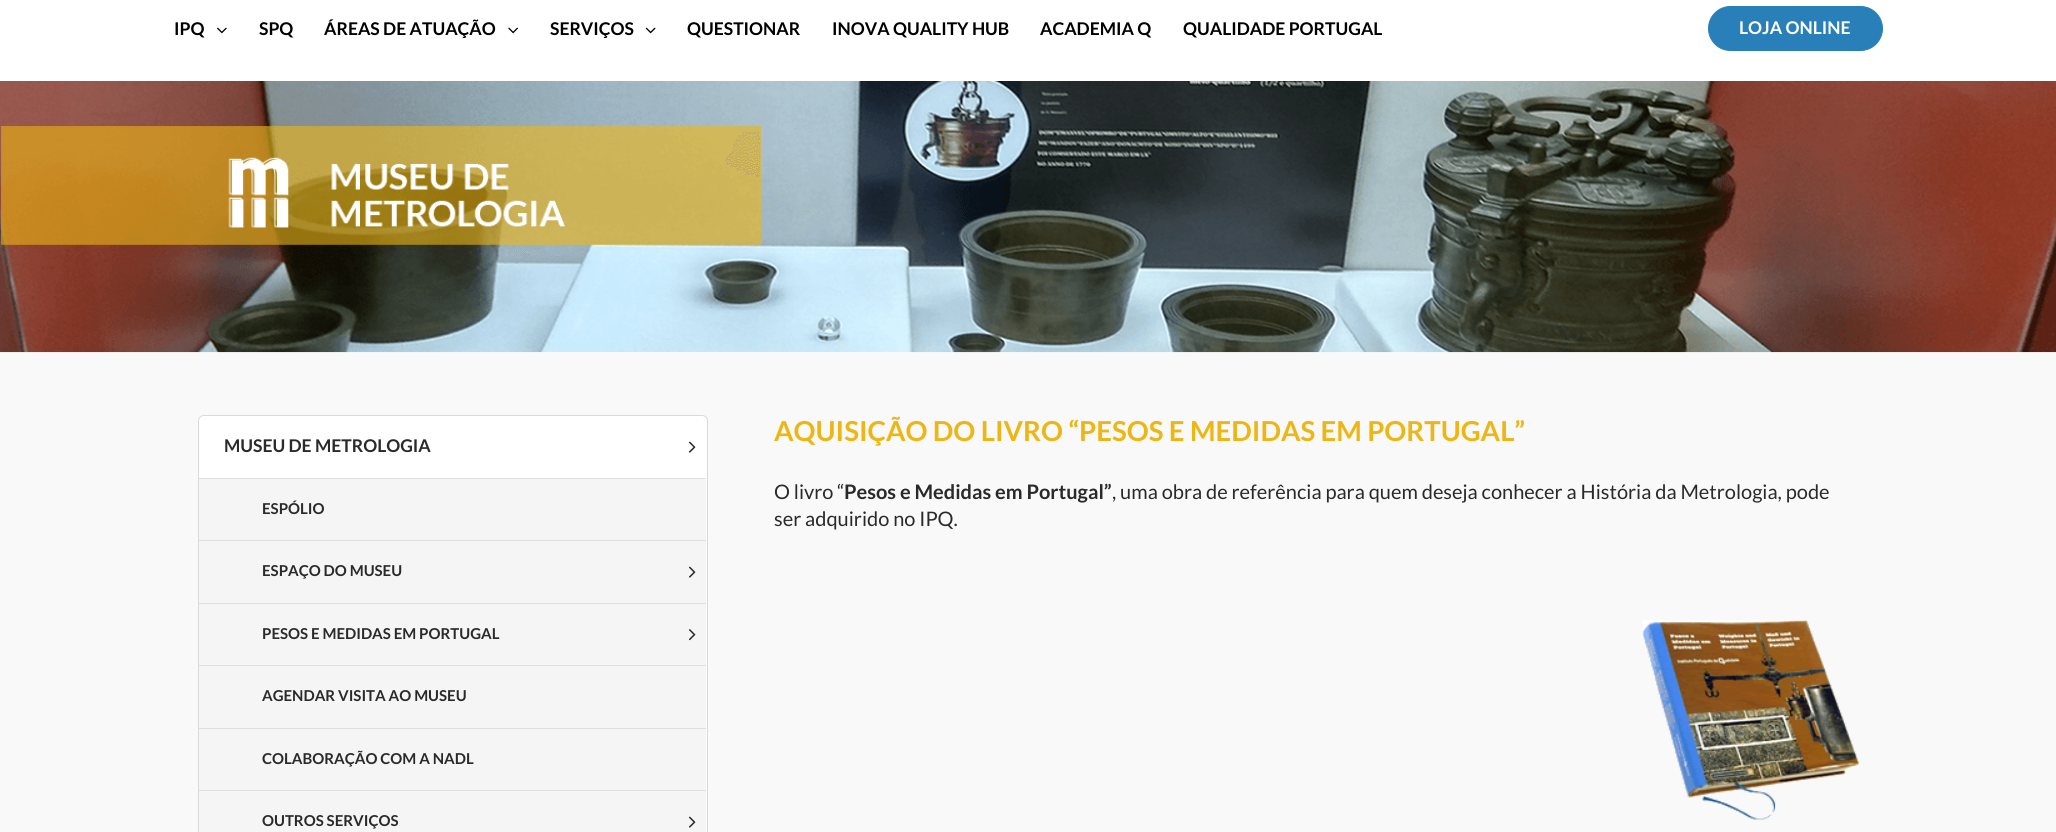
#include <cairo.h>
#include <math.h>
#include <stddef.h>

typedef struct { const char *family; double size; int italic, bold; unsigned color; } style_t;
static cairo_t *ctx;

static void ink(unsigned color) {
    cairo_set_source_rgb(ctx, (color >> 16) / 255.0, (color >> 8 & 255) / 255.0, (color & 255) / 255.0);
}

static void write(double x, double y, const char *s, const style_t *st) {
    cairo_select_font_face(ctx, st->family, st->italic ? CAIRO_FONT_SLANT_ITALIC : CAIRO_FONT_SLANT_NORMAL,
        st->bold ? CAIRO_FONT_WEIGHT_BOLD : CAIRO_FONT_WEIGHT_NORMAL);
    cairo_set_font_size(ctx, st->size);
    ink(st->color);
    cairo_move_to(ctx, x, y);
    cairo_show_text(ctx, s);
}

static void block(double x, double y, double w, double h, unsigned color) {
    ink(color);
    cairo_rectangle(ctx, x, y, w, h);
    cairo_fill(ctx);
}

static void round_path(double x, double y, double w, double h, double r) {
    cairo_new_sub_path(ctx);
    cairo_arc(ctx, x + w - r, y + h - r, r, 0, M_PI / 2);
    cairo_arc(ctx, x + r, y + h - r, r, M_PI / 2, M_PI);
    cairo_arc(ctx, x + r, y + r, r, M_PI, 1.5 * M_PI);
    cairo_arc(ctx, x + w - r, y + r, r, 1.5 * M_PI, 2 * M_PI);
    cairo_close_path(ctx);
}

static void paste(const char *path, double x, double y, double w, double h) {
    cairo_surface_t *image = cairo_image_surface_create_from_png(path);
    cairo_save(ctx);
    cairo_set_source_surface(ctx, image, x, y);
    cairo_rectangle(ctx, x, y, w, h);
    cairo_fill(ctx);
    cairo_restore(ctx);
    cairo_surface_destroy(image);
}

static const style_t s1 = {"Lato", 17.5, 0, 1, 0x000000};
static const style_t s2 = {"Lato", 17.5, 0, 1, 0xffffff};
static const style_t s3 = {"Lato", 17.5, 0, 1, 0x2a2a2a};
static const style_t s4 = {"Lato", 15, 0, 1, 0x2a2a2a};
static const style_t s5 = {"Lato", 27.5, 0, 1, 0xeeb614};
static const style_t s6 = {"Lato", 20, 0, 0, 0x2a2a2a};
static const style_t s7 = {"Lato", 20, 0, 1, 0x2a2a2a};

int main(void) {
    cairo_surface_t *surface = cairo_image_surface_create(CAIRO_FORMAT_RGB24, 2056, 832);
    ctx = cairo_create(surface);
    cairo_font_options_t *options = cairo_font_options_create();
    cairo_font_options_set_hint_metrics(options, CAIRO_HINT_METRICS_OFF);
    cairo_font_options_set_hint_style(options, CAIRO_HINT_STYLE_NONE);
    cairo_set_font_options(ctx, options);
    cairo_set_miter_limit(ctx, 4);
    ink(0xffffff);
    cairo_paint(ctx);
    write(174, 35, "IPQ", &s1);
    paste("pic1.png", 217, 27, 10, 7);
    write(259, 35, "SPQ", &s1);
    write(324, 35, "ÁREAS DE ATUAÇÃO", &s1);
    paste("pic2.png", 508, 27, 10, 7);
    write(550, 35, "SERVIÇOS", &s1);
    paste("pic3.png", 645, 27, 11, 7);
    write(687, 35, "QUESTIONAR", &s1);
    write(832, 35, "INOVA QUALITY HUB", &s1);
    write(1040, 35, "ACADEMIA Q", &s1);
    write(1183, 35, "QUALIDADE PORTUGAL", &s1);
    ink(0x2980b9);
    round_path(1708.5, 6.5, 174, 44, 22);
    cairo_fill_preserve(ctx);
    cairo_set_line_width(ctx, 1);
    cairo_stroke(ctx);
    write(1739, 34, "LOJA ONLINE", &s2);
    block(0, 352, 2056, 480, 0xf9f9f9);
    paste("pic4.png", 0, 81, 2056, 272);
    ink(0xffffff);
    round_path(198.5, 415.5, 509, 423, 5.5);
    cairo_fill_preserve(ctx);
    ink(0xdadada);
    cairo_stroke(ctx);
    block(199, 478, 507, 1, 0xe0dede);
    write(224, 452, "MUSEU DE METROLOGIA", &s3);
    paste("pic5.png", 688, 441, 8, 12);
    block(199, 479, 507, 353, 0xf5f5f5);
    block(199, 540, 507, 1, 0xe0dede);
    write(262, 514, "ESPÓLIO", &s4);
    block(199, 603, 507, 1, 0xe0dede);
    write(262, 576, "ESPAÇO DO MUSEU", &s4);
    paste("pic6.png", 688, 566, 8, 12);
    block(199, 665, 507, 1, 0xe0dede);
    write(262, 639, "PESOS E MEDIDAS EM PORTUGAL", &s4);
    paste("pic7.png", 688, 629, 8, 12);
    block(199, 728, 507, 1, 0xe0dede);
    write(262, 701, "AGENDAR VISITA AO MUSEU", &s4);
    block(199, 790, 507, 1, 0xe0dede);
    write(262, 764, "COLABORAÇÃO COM A NADL", &s4);
    write(262, 826, "OUTROS SERVIÇOS", &s4);
    paste("pic6.png", 688, 816, 8, 12);
    write(774, 441, "AQUISIÇÃO DO LIVRO “PESOS E MEDIDAS EM PORTUGAL”", &s5);
    write(774, 499, "O livro “", &s6);
    write(844, 499, "Pesos e Medidas em Portugal”", &s7);
    write(1112, 499, ", uma obra de referência para quem deseja conhecer a História da Metrologia, pode", &s6);
    write(774, 526, "ser adquirido no IPQ.", &s6);
    paste("pic8.png", 1642, 620, 217, 200);
    cairo_surface_write_to_png(surface, "screenshot.png");
    cairo_font_options_destroy(options);
    cairo_destroy(ctx);
    cairo_surface_destroy(surface);
    return 0;
}
